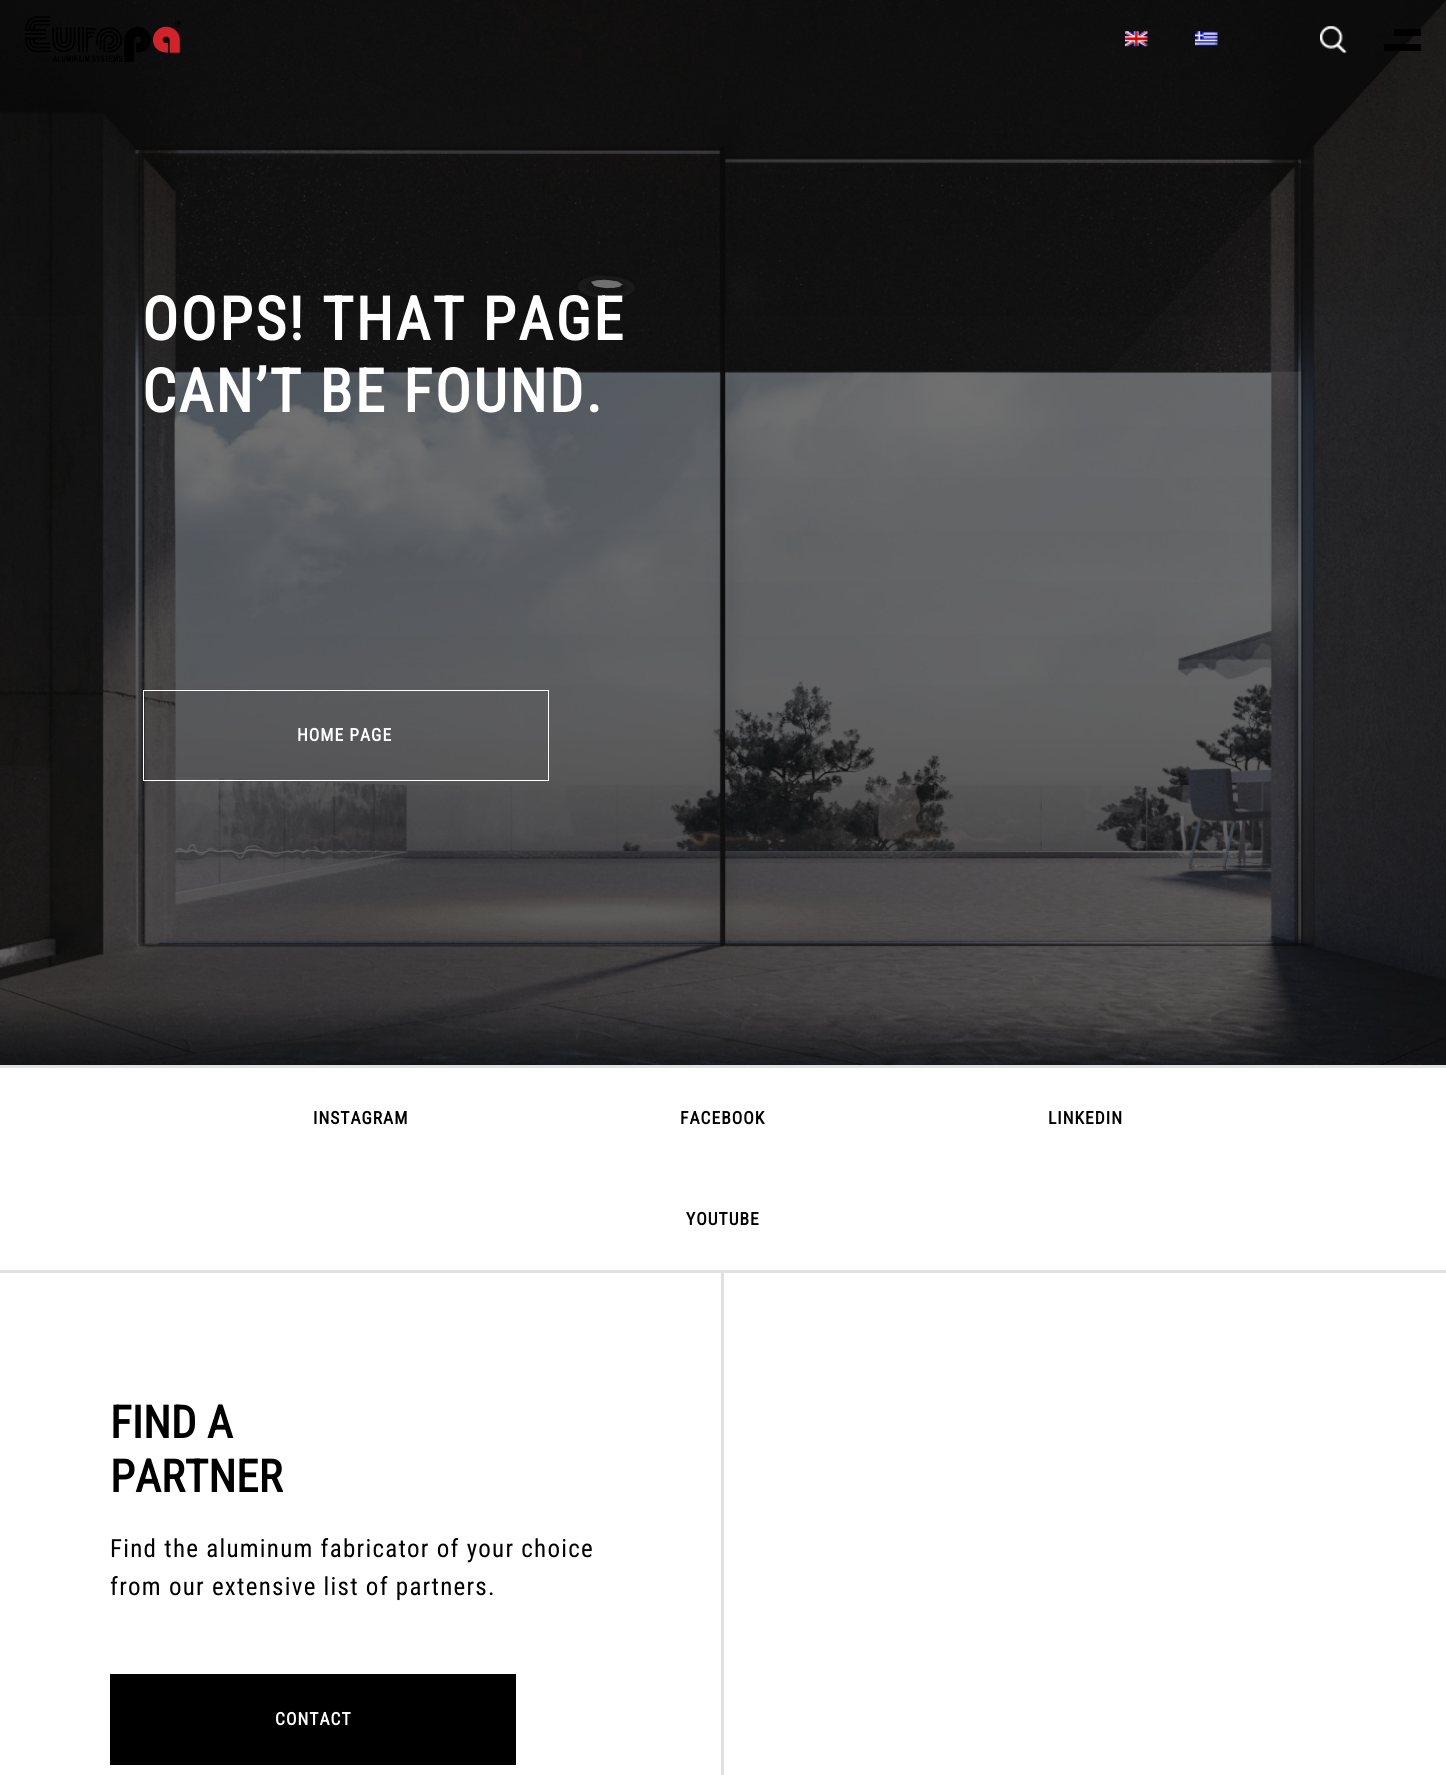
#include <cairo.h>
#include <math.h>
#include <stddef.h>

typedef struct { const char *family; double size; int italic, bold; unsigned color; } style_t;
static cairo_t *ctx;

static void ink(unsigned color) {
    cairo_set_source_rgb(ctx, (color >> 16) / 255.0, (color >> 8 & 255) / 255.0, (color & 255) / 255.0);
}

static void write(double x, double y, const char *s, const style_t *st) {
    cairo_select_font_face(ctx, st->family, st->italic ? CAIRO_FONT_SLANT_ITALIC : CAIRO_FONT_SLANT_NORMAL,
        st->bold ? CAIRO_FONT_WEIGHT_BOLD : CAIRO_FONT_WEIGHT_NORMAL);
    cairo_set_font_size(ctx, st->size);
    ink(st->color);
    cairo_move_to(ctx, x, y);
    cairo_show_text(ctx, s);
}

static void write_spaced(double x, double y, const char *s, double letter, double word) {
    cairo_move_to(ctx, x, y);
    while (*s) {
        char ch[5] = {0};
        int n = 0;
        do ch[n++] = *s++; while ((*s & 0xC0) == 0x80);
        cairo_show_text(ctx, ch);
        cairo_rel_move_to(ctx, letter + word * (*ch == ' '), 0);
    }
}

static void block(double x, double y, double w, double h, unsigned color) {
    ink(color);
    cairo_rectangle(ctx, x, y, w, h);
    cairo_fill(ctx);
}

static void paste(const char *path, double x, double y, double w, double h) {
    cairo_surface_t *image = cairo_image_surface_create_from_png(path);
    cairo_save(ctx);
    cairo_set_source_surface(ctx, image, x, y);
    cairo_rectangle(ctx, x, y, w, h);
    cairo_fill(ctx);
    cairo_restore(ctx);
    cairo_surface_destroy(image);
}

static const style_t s1 = {"Roboto Condensed", 45, 0, 1, 0x000000};

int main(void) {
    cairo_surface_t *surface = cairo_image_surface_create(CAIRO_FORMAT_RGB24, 1446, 1775);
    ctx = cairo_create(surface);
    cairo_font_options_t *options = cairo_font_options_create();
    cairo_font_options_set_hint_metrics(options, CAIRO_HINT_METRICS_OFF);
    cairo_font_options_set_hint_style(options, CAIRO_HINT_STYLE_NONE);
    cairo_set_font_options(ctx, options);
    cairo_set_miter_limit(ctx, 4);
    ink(0xffffff);
    cairo_paint(ctx);
    paste("pic5.png", 0, 0, 1446, 1065);
    paste("pic1.png", 25, 16, 156, 46);
    paste("pic2.png", 1125, 31, 23, 16);
    paste("pic3.png", 1195, 31, 23, 16);
    paste("pic4.png", 1320, 26, 27, 28);
    block(1394, 29, 27, 7, 0x000000);
    block(1384, 44, 37, 7, 0x000000);
    cairo_select_font_face(ctx, "Roboto Condensed", CAIRO_FONT_SLANT_NORMAL, CAIRO_FONT_WEIGHT_BOLD);
    cairo_set_font_size(ctx, 60);
    ink(0xffffff);
    write_spaced(142, 340, "OOPS! THAT PAGE", 2.5, 0);
    write_spaced(142, 412, "CAN’T BE FOUND.", 2.5, 0);
    cairo_rectangle(ctx, 143.5, 690.5, 405, 90);
    cairo_set_line_width(ctx, 1);
    cairo_stroke(ctx);
    cairo_set_font_size(ctx, 17.5);
    write_spaced(297, 741, "HOME PAGE", 1, 0);
    block(0, 1065, 1446, 3, 0xe0e1e3);
    ink(0x000000);
    write_spaced(313, 1124, "INSTAGRAM", 1, 0);
    write_spaced(680, 1124, "FACEBOOK", 1, 0);
    write_spaced(1048, 1124, "LINKEDIN", 1, 0);
    write_spaced(686, 1225, "YOUTUBE", 1, 0);
    block(0, 1270, 1446, 3, 0xe0e1e3);
    block(721, 1273, 3, 502, 0xe0e1e3);
    write(110, 1438, "FIND A", &s1);
    write(110, 1492, "PARTNER", &s1);
    cairo_select_font_face(ctx, "Roboto Condensed", CAIRO_FONT_SLANT_NORMAL, CAIRO_FONT_WEIGHT_NORMAL);
    cairo_set_font_size(ctx, 25);
    write_spaced(110, 1557, "Find the aluminum fabricator of your choice", 1.25, 0);
    write_spaced(110, 1595, "from our extensive list of partners.", 1.25, 0);
    block(110, 1674, 406, 91, 0x000000);
    cairo_select_font_face(ctx, "Roboto Condensed", CAIRO_FONT_SLANT_NORMAL, CAIRO_FONT_WEIGHT_BOLD);
    cairo_set_font_size(ctx, 17.5);
    ink(0xffffff);
    write_spaced(275, 1725, "CONTACT", 1, 0);
    cairo_surface_write_to_png(surface, "screenshot.png");
    cairo_font_options_destroy(options);
    cairo_destroy(ctx);
    cairo_surface_destroy(surface);
    return 0;
}
